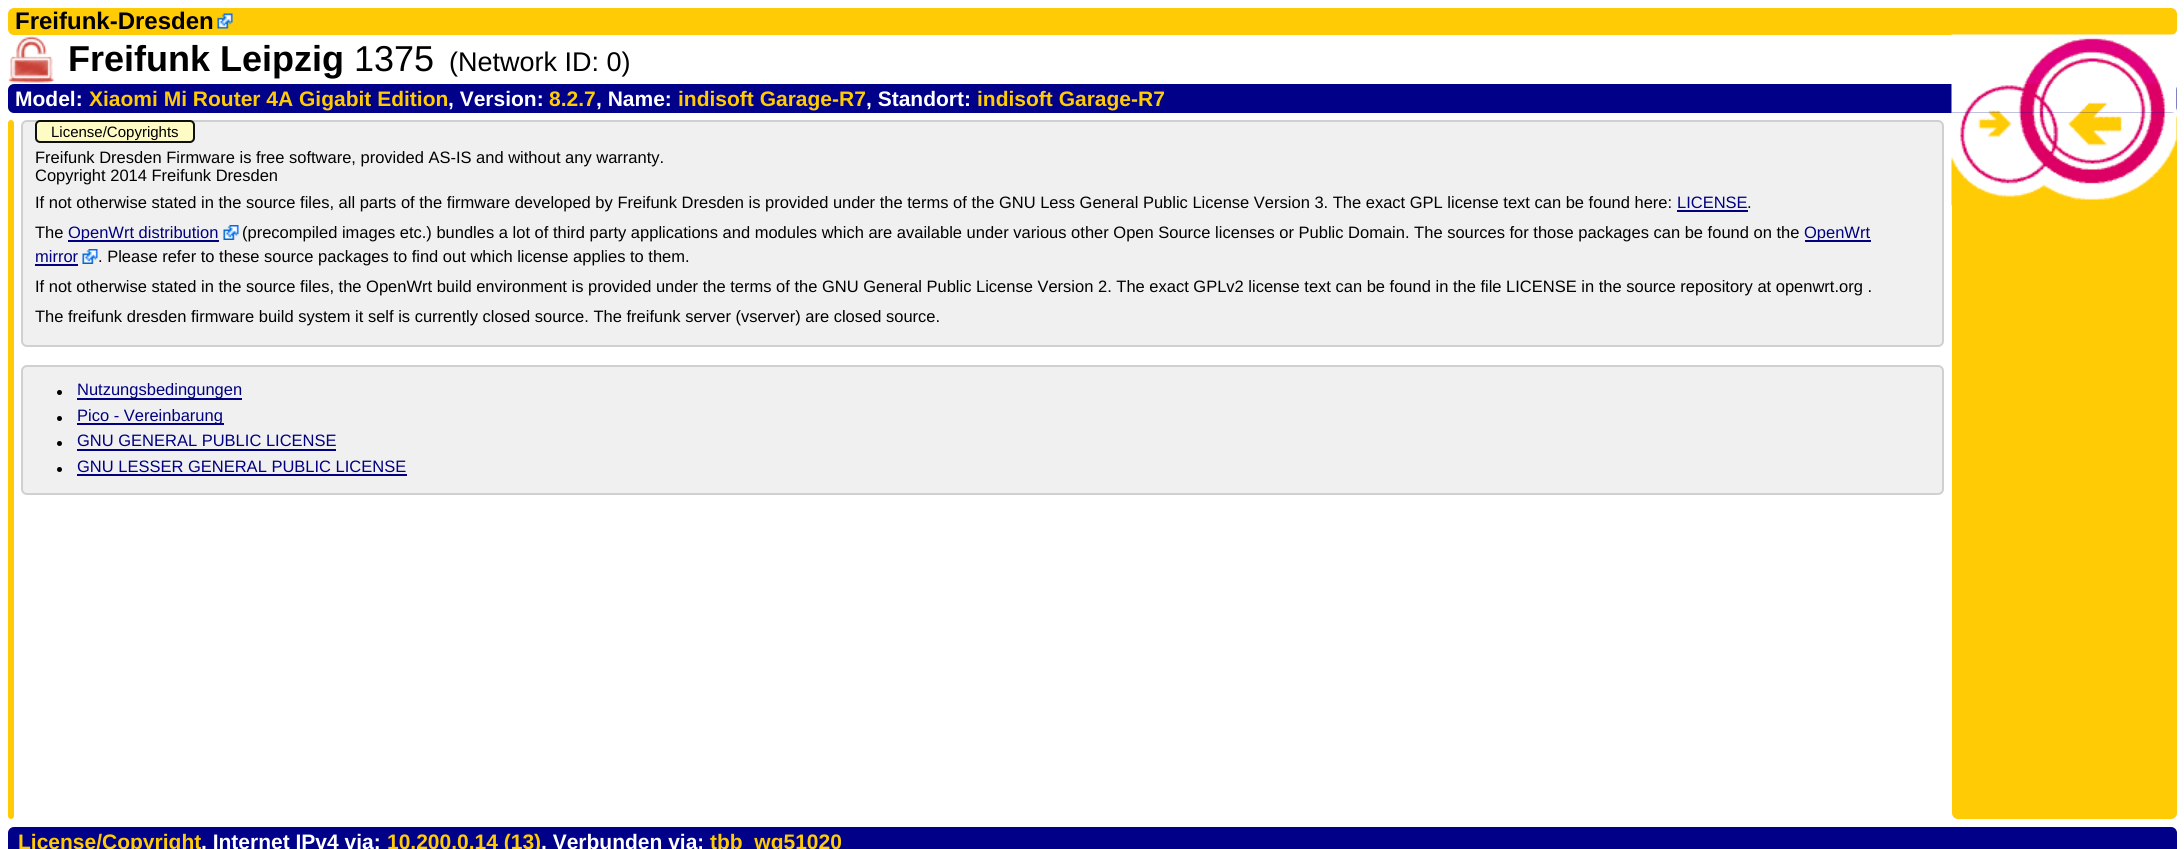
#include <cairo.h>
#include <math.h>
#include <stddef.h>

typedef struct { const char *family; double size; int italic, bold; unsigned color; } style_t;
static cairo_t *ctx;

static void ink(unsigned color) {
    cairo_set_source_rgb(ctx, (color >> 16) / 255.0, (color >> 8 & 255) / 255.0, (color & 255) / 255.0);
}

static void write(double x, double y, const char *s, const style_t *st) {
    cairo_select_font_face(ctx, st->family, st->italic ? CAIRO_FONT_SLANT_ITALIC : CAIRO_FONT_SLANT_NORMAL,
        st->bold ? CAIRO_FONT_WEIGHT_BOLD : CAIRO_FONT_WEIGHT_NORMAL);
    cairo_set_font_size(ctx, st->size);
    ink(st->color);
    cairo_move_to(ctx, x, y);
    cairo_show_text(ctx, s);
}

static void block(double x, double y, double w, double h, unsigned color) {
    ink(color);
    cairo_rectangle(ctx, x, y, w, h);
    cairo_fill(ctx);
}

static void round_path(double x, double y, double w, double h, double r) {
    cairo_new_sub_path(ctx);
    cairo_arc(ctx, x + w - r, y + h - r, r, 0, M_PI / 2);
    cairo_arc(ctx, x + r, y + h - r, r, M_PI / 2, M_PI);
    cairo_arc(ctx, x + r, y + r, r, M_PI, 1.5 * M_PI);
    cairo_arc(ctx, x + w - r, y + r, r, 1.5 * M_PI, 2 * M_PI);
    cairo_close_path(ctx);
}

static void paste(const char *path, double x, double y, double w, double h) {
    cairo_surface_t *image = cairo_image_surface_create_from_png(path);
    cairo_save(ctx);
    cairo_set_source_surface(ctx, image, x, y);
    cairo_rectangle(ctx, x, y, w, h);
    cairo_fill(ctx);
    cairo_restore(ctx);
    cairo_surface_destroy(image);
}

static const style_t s1 = {"Liberation Sans", 24, 0, 1, 0x000000};
static const style_t s2 = {"Liberation Sans", 36, 0, 1, 0x000000};
static const style_t s3 = {"Liberation Sans", 36, 0, 0, 0x000000};
static const style_t s4 = {"Liberation Sans", 27, 0, 0, 0x000000};
static const style_t s5 = {"Liberation Sans", 21, 0, 1, 0xffffff};
static const style_t s6 = {"Liberation Sans", 21, 0, 1, 0xffcb05};
static const style_t s7 = {"Liberation Sans", 15, 0, 0, 0x000000};
static const style_t s8 = {"Liberation Sans", 16.5, 0, 0, 0x000000};
static const style_t s9 = {"Liberation Sans", 16.5, 0, 0, 0x000080};

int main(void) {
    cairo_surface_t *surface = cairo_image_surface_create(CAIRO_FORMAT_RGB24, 2184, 849);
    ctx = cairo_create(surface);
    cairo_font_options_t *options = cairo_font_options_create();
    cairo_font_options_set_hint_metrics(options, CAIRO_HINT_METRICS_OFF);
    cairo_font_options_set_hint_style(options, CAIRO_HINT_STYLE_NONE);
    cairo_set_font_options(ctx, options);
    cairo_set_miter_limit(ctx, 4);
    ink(0xffffff);
    cairo_paint(ctx);
    ink(0xffcb05);
    round_path(8, 8, 2169, 27, 6);
    cairo_fill(ctx);
    write(15, 29, "Freifunk-Dresden", &s1);
    paste("pic1.png", 217, 13, 16, 16);
    paste("pic2.png", 8, 36, 47, 47);
    write(68, 71, "Freifunk Leipzig", &s2);
    write(354, 71, "1375", &s3);
    write(449, 71, "(Network ID: 0)", &s4);
    paste("pic3.png", 1951, 34, 223, 50);
    ink(0x000088);
    round_path(8, 84, 2169, 29, 6);
    cairo_fill(ctx);
    write(15, 106, "Model:", &s5);
    write(89, 106, "Xiaomi Mi Router 4A Gigabit Edition", &s6);
    write(448, 106, ", Version:", &s5);
    write(549, 106, "8.2.7", &s6);
    write(596, 106, ", Name:", &s5);
    write(678, 106, "indisoft Garage-R7", &s6);
    write(866, 106, ", Standort:", &s5);
    write(977, 106, "indisoft Garage-R7", &s6);
    paste("pic4.png", 1951, 84, 226, 29);
    round_path(8, 120, 6, 699, 3);
    cairo_fill(ctx);
    ink(0xf0f0f0);
    round_path(22, 121, 1921, 225, 5);
    cairo_fill_preserve(ctx);
    ink(0xd0d0d0);
    cairo_stroke(ctx);
    ink(0xfffbc5);
    round_path(36, 121, 158, 21, 4);
    cairo_fill_preserve(ctx);
    ink(0x0f0f0f);
    cairo_stroke(ctx);
    write(51, 137, "License/Copyrights", &s7);
    write(35, 163, "Freifunk Dresden Firmware is free software, provided AS-IS and without any warranty.", &s8);
    write(35, 181, "Copyright 2014 Freifunk Dresden", &s8);
    write(35, 208, "If not otherwise stated in the source files, all parts of the firmware developed by Freifunk Dresden is provided under the terms of the GNU Less General Public License Version 3. The exact GPL license text can be found here:", &s8);
    write(1677, 208, "LICENSE", &s9);
    block(1677, 210, 71, 2, 0x000080);
    write(1747, 208, ".", &s8);
    write(35, 238, "The", &s8);
    block(68, 240, 151, 2, 0x000080);
    write(68, 238, "OpenWrt distribution", &s9);
    paste("pic5.png", 223, 225, 16, 15);
    write(242, 238, "(precompiled images etc.) bundles a lot of third party applications and modules which are available under various other Open Source licenses or Public Domain. The sources for those packages can be found on the", &s8);
    block(1805, 240, 66, 2, 0x000080);
    write(1804, 238, "OpenWrt", &s9);
    write(35, 262, "mirror", &s9);
    block(35, 264, 43, 2, 0x000080);
    paste("pic5.png", 82, 249, 16, 15);
    write(98, 262, ". Please refer to these source packages to find out which license applies to them.", &s8);
    write(35, 292, "If not otherwise stated in the source files, the OpenWrt build environment is provided under the terms of the GNU General Public License Version 2. The exact GPLv2 license text can be found in the file LICENSE in the source repository at openwrt.org .", &s8);
    write(35, 322, "The freifunk dresden firmware build system it self is currently closed source. The freifunk server (vserver) are closed source.", &s8);
    ink(0xf0f0f0);
    round_path(22, 366, 1921, 128, 5);
    cairo_fill_preserve(ctx);
    ink(0xd0d0d0);
    cairo_stroke(ctx);
    ink(0x000000);
    cairo_arc(ctx, 59.5, 392.5, 2.5, 0, 2 * M_PI);
    cairo_fill(ctx);
    block(77, 398, 165, 2, 0x000080);
    write(77, 395, "Nutzungsbedingungen", &s9);
    ink(0x000000);
    cairo_new_path(ctx);
    cairo_arc(ctx, 59.5, 418.5, 2.5, 0, 2 * M_PI);
    cairo_fill(ctx);
    block(77, 423, 147, 2, 0x000080);
    write(77, 421, "Pico - Vereinbarung", &s9);
    ink(0x000000);
    cairo_new_path(ctx);
    cairo_arc(ctx, 59.5, 443.5, 2.5, 0, 2 * M_PI);
    cairo_fill(ctx);
    write(77, 446, "GNU GENERAL PUBLIC LICENSE", &s9);
    block(77, 449, 259, 2, 0x000080);
    ink(0x000000);
    cairo_new_path(ctx);
    cairo_arc(ctx, 59.5, 469.5, 2.5, 0, 2 * M_PI);
    cairo_fill(ctx);
    write(77, 472, "GNU LESSER GENERAL PUBLIC LICENSE", &s9);
    block(77, 474, 330, 2, 0x000080);
    ink(0xffcb05);
    round_path(1952, 113, 225, 706, 6);
    cairo_fill(ctx);
    paste("pic6.png", 1951, 112, 226, 94);
    ink(0x000088);
    round_path(8, 827, 2169, 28, 6);
    cairo_fill(ctx);
    write(18, 849, "License/Copyright", &s6);
    write(201, 849, ", Internet IPv4 via:", &s5);
    write(387, 849, "10.200.0.14 (13)", &s6);
    write(541, 849, ", Verbunden via:", &s5);
    write(710, 849, "tbb_wg51020", &s6);
    cairo_surface_write_to_png(surface, "screenshot.png");
    cairo_font_options_destroy(options);
    cairo_destroy(ctx);
    cairo_surface_destroy(surface);
    return 0;
}
